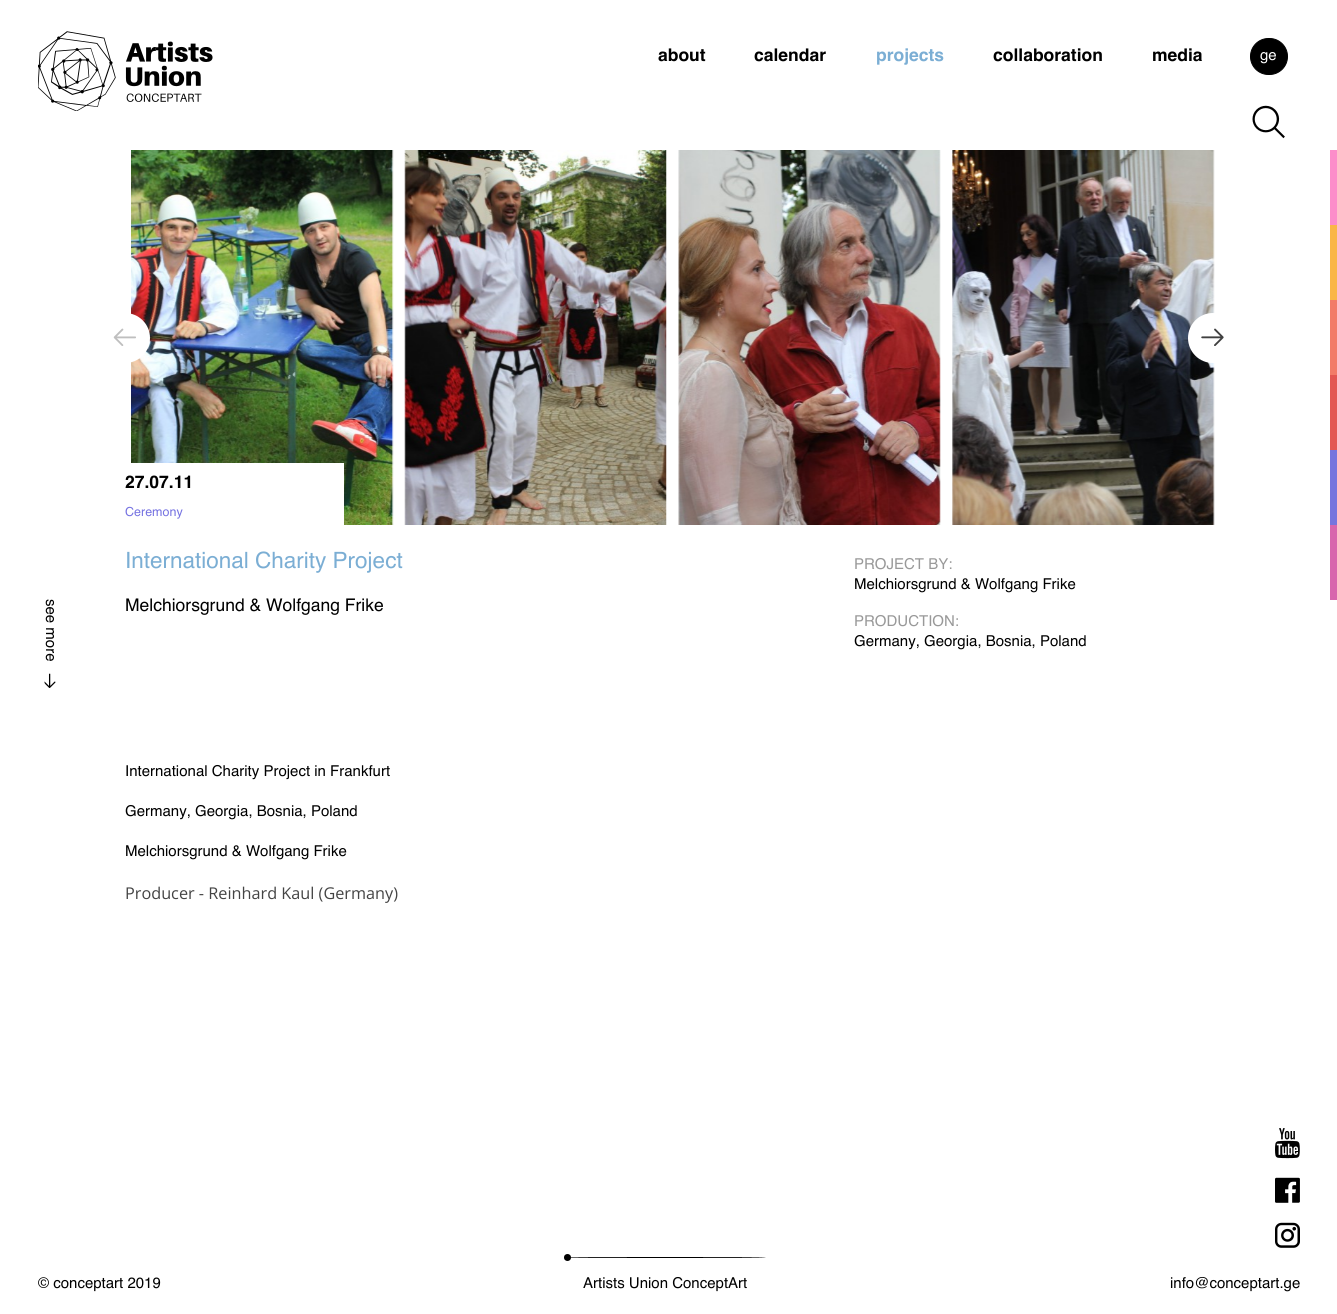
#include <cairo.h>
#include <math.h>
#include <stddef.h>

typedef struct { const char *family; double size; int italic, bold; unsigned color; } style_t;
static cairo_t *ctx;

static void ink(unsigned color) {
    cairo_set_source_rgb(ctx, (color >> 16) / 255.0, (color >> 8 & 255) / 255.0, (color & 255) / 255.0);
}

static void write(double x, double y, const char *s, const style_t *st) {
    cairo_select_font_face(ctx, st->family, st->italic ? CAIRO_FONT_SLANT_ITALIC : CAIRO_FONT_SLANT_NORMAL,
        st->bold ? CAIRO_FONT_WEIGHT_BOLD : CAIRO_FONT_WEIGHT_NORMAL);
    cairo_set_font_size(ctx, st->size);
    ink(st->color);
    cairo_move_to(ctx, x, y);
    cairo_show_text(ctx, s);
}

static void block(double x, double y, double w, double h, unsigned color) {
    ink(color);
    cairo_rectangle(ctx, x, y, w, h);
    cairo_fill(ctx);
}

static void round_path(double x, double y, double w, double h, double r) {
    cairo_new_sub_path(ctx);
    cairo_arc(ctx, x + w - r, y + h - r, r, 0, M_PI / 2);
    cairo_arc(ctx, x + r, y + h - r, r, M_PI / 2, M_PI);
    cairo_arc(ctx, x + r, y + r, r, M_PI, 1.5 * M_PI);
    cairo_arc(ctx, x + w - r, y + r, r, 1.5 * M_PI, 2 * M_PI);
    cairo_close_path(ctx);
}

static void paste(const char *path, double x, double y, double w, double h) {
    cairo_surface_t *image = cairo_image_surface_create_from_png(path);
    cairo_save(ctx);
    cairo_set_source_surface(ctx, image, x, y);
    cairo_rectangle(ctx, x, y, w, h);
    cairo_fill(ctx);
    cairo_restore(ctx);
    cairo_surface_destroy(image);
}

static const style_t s1 = {"Helvetica", 17.5, 0, 1, 0x000000};
static const style_t s2 = {"Helvetica", 17.5, 0, 1, 0x7baed4};
static const style_t s3 = {"Helvetica", 15, 0, 0, 0xffffff};
static const style_t s4 = {"Helvetica", 15, 0, 0, 0x000000};
static const style_t s5 = {"Helvetica", 12.5, 0, 0, 0x7572e1};
static const style_t s6 = {"Helvetica", 22.5, 0, 0, 0x7baed4};
static const style_t s7 = {"Helvetica", 17.5, 0, 0, 0x000000};
static const style_t s8 = {"Helvetica", 15, 0, 0, 0x999999};
static const style_t s9 = {"Open Sans", 16.25, 0, 0, 0x444444};

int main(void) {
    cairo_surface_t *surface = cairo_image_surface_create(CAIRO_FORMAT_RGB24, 1337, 1314);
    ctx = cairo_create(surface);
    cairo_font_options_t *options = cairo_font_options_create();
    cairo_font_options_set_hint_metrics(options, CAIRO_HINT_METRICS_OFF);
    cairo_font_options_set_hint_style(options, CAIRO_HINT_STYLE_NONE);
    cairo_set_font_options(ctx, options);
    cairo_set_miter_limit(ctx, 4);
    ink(0xffffff);
    cairo_paint(ctx);
    paste("pic1.png", 38, 31, 175, 80);
    write(658, 61, "about", &s1);
    write(754, 61, "calendar", &s1);
    write(876, 61, "projects", &s2);
    write(993, 61, "collaboration", &s1);
    write(1152, 61, "media", &s1);
    round_path(1250.5, 38.5, 37, 36, 18);
    cairo_fill_preserve(ctx);
    cairo_set_line_width(ctx, 1);
    cairo_stroke(ctx);
    write(1260, 60, "ge", &s3);
    paste("pic2.png", 1252, 105, 33, 34);
    block(1330, 150, 7, 75, 0xfc8dca);
    block(1330, 225, 7, 75, 0xfab647);
    block(1330, 300, 7, 75, 0xf27b68);
    block(1330, 375, 7, 75, 0xe35652);
    block(1330, 450, 7, 75, 0x7675de);
    block(1330, 525, 7, 75, 0xd866ad);
    cairo_save(ctx);
    cairo_translate(ctx, 46, 599);
    cairo_rotate(ctx, 90 * M_PI / 180);
    write(0, 0, "see more", &s4);
    cairo_restore(ctx);
    paste("pic3.png", 44, 673, 12, 15);
    paste("pic5.png", 131, 150, 263, 375);
    ink(0xffffff);
    cairo_arc(ctx, 125, 338, 25, 0, 2 * M_PI);
    cairo_fill(ctx);
    paste("pic4.png", 113, 328, 23, 18);
    paste("pic6.png", 404, 150, 263, 375);
    paste("pic7.png", 678, 150, 263, 375);
    paste("pic8.png", 952, 150, 263, 375);
    cairo_arc(ctx, 1213, 338, 25, 0, 2 * M_PI);
    cairo_fill(ctx);
    paste("pic9.png", 1201, 328, 23, 18);
    block(131, 463, 213, 62, 0xffffff);
    write(125, 488, "27.07.11", &s1);
    write(125, 516, "Ceremony", &s5);
    write(125, 568, "International Charity Project", &s6);
    write(125, 611, "Melchiorsgrund & Wolfgang Frike", &s7);
    write(854, 569, "PROJECT BY:", &s8);
    write(854, 589, "Melchiorsgrund & Wolfgang Frike", &s4);
    write(854, 626, "PRODUCTION:", &s8);
    write(854, 646, "Germany, Georgia, Bosnia, Poland", &s4);
    write(125, 776, "International Charity Project in Frankfurt", &s4);
    write(125, 816, "Germany, Georgia, Bosnia, Poland", &s4);
    write(125, 856, "Melchiorsgrund & Wolfgang Frike", &s4);
    write(125, 899, "Producer - Reinhard Kaul (Germany)", &s9);
    paste("pic10.png", 1275, 1128, 25, 31);
    paste("pic11.png", 1275, 1177, 25, 26);
    paste("pic12.png", 1275, 1222, 25, 26);
    write(38, 1288, "© conceptart 2019", &s4);
    cairo_new_path(ctx);
    cairo_move_to(ctx, 665, 1257);
    cairo_curve_to(ctx, 721, 1257, 766, 1257, 766, 1257.5);
    cairo_curve_to(ctx, 766, 1258, 721, 1258, 665, 1258);
    cairo_curve_to(ctx, 609, 1258, 564, 1258, 564, 1257.5);
    cairo_curve_to(ctx, 564, 1257, 609, 1257, 665, 1257);
    cairo_close_path(ctx);
    cairo_fill(ctx);
    cairo_arc(ctx, 567.5, 1257.5, 3.5, 0, 2 * M_PI);
    cairo_fill(ctx);
    write(583, 1288, "Artists Union ConceptArt", &s4);
    write(1170, 1288, "info@conceptart.ge", &s4);
    cairo_surface_write_to_png(surface, "screenshot.png");
    cairo_font_options_destroy(options);
    cairo_destroy(ctx);
    cairo_surface_destroy(surface);
    return 0;
}
